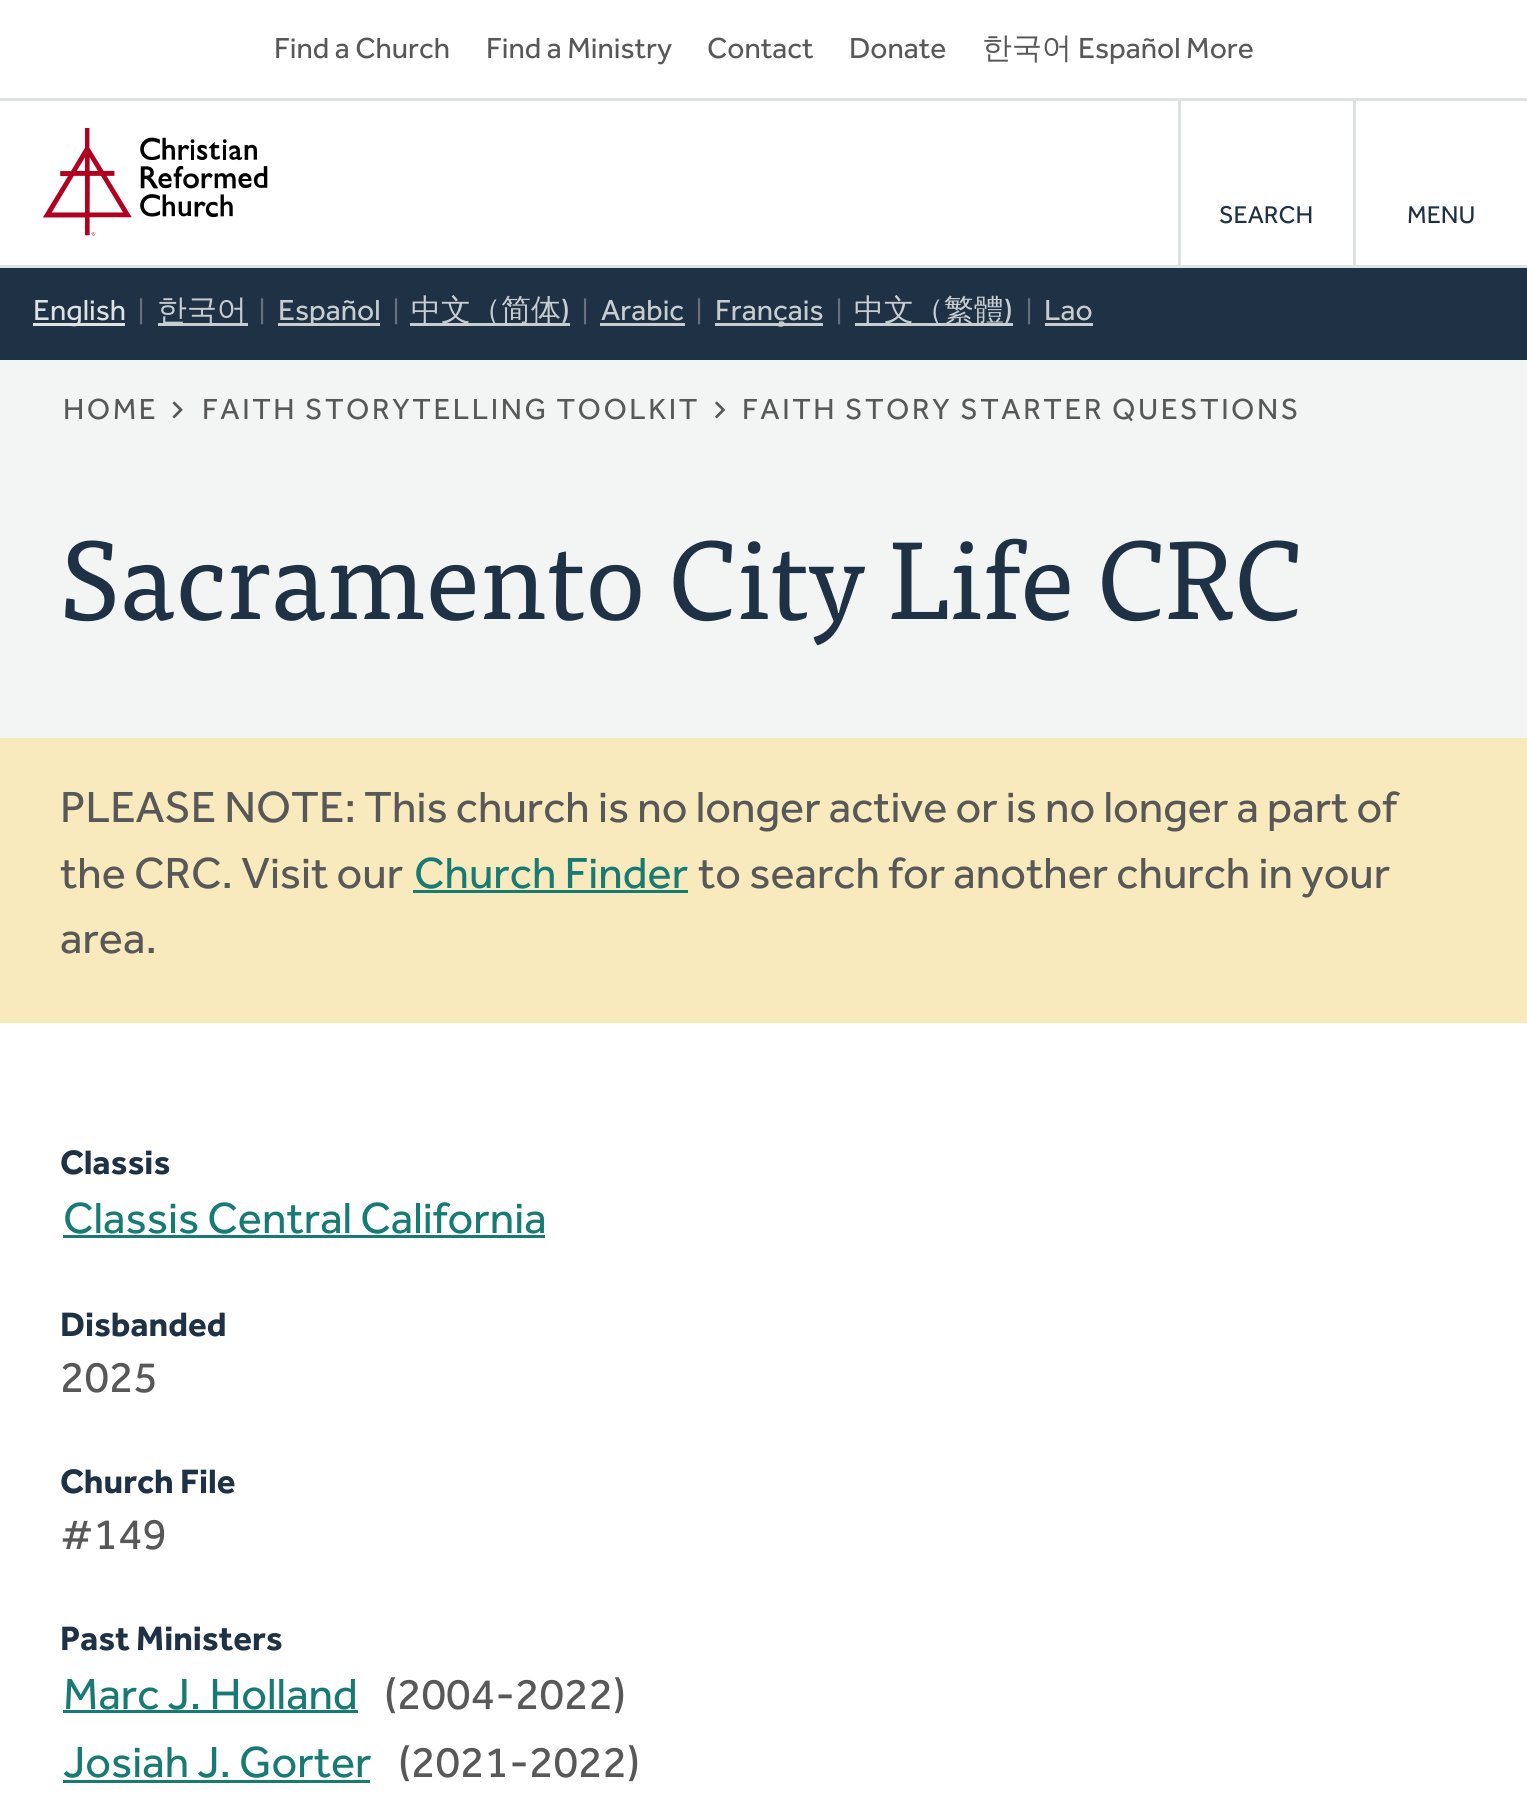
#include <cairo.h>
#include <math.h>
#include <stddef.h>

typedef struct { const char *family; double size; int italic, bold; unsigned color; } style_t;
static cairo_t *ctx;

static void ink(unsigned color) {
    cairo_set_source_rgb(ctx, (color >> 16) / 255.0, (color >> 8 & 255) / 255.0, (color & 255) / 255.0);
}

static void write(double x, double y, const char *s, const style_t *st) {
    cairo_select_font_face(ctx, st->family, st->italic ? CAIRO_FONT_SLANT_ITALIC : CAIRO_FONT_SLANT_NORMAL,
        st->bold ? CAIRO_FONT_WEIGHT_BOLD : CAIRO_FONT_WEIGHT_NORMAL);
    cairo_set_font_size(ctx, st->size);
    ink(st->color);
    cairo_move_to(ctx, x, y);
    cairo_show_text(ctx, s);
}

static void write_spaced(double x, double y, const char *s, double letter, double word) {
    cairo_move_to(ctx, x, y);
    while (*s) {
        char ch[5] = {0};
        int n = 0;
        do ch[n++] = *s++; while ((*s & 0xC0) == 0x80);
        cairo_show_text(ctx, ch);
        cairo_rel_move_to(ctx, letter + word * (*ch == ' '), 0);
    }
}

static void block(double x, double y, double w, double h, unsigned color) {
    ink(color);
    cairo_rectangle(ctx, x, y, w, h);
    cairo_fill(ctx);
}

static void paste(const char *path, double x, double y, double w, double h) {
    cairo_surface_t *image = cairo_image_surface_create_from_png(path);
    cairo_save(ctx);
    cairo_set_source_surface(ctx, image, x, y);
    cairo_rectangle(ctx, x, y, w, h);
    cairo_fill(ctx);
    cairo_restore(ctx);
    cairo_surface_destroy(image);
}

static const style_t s1 = {"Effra", 30, 0, 0, 0x585858};
static const style_t s2 = {"WenQuanYi Zen Hei Medium", 30, 0, 0, 0x585858};
static const style_t s3 = {"Effra", 25, 0, 0, 0x1e3145};
static const style_t s4 = {"Effra", 30, 0, 0, 0xdee2e3};
static const style_t s5 = {"Effra", 26, 0, 0, 0x6a6f7c};
static const style_t s6 = {"WenQuanYi Zen Hei Medium", 30, 0, 0, 0xc8cdd1};
static const style_t s7 = {"Effra", 30, 0, 0, 0xc8cdd1};
static const style_t s8 = {"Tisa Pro", 110, 0, 0, 0x1e3145};
static const style_t s9 = {"Effra", 45, 0, 0, 0x585858};
static const style_t s10 = {"Effra", 45, 0, 0, 0x187b73};
static const style_t s11 = {"Effra", 35, 0, 1, 0x1e3145};

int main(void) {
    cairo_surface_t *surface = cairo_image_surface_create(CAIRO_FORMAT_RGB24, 1527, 1804);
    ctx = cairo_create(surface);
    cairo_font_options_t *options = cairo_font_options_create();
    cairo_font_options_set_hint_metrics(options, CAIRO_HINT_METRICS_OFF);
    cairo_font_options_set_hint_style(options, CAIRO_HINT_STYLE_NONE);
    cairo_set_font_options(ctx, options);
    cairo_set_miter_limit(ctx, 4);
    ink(0xffffff);
    cairo_paint(ctx);
    block(0, 265, 1527, 3, 0xdee2e3);
    block(0, 98, 1527, 3, 0xdee2e3);
    write(274, 58, "Find a Church", &s1);
    write(486, 58, "Find a Ministry", &s1);
    write(707, 58, "Contact", &s1);
    write(849, 58, "Donate", &s1);
    write(982, 58, "한국어", &s2);
    write(1078, 58, "Español More", &s1);
    paste("pic1.png", 43, 128, 225, 108);
    block(1178, 100, 3, 165, 0xdee2e3);
    write(1219, 223, "SEARCH", &s3);
    block(1353, 100, 3, 165, 0xdee2e3);
    write(1407, 223, "MENU", &s3);
    block(0, 268, 1527, 92, 0x1e3145);
    block(33, 323, 92, 3, 0xdee2e3);
    write(33, 320, "English", &s4);
    write(138, 320, "|", &s5);
    block(158, 323, 90, 3, 0xc8cdd1);
    write(157, 320, "한국어", &s6);
    write(259, 320, "|", &s5);
    block(278, 323, 102, 3, 0xc8cdd1);
    write(278, 320, "Español", &s7);
    write(393, 320, "|", &s5);
    block(410, 323, 160, 3, 0xc8cdd1);
    write(411, 320, "中文（简体", &s6);
    write(561, 320, ")", &s7);
    write(582, 320, "|", &s5);
    write(601, 320, "Arabic", &s7);
    block(600, 323, 85, 3, 0xc8cdd1);
    write(696, 320, "|", &s5);
    block(715, 323, 108, 3, 0xc8cdd1);
    write(715, 320, "Français", &s7);
    write(836, 320, "|", &s5);
    block(855, 323, 158, 3, 0xc8cdd1);
    write(854, 320, "中文（繁體", &s6);
    write(1004, 320, ")", &s7);
    write(1026, 320, "|", &s5);
    write(1044, 320, "Lao", &s7);
    block(1045, 323, 48, 3, 0xc8cdd1);
    block(0, 360, 1527, 378, 0xf3f5f5);
    ink(0x585858);
    write_spaced(63, 419, "HOME", 2.5, 0);
    paste("pic2.png", 172, 401, 11, 18);
    write_spaced(202, 419, "FAITH STORYTELLING TOOLKIT", 2.5, 0);
    paste("pic3.png", 715, 401, 11, 18);
    write_spaced(742, 419, "FAITH STORY STARTER QUESTIONS", 2.5, 0);
    write(60, 619, "Sacramento City Life CRC", &s8);
    block(0, 738, 1527, 285, 0xf9eabe);
    write(60, 822, "PLEASE NOTE: This church is no longer active or is no longer a part of", &s9);
    write(60, 888, "the CRC. Visit our", &s9);
    write(414, 888, "Church Finder", &s10);
    block(413, 890, 275, 3, 0x187b73);
    write(698, 888, "to search for another church in your", &s9);
    write(60, 953, "area.", &s9);
    write(60, 1174, "Classis", &s11);
    write(63, 1233, "Classis Central California", &s10);
    block(63, 1235, 482, 3, 0x187b73);
    write(60, 1336, "Disbanded", &s11);
    write(60, 1392, "2025", &s9);
    write(60, 1493, "Church File", &s11);
    write(60, 1549, "#149", &s9);
    write(60, 1650, "Past Ministers", &s11);
    write(63, 1709, "Marc J. Holland", &s10);
    block(63, 1710, 295, 3, 0x187b73);
    write(384, 1709, "(2004-2022)", &s9);
    write(63, 1777, "Josiah J. Gorter", &s10);
    block(63, 1780, 307, 3, 0x187b73);
    write(398, 1777, "(2021-2022)", &s9);
    cairo_surface_write_to_png(surface, "screenshot.png");
    cairo_font_options_destroy(options);
    cairo_destroy(ctx);
    cairo_surface_destroy(surface);
    return 0;
}
